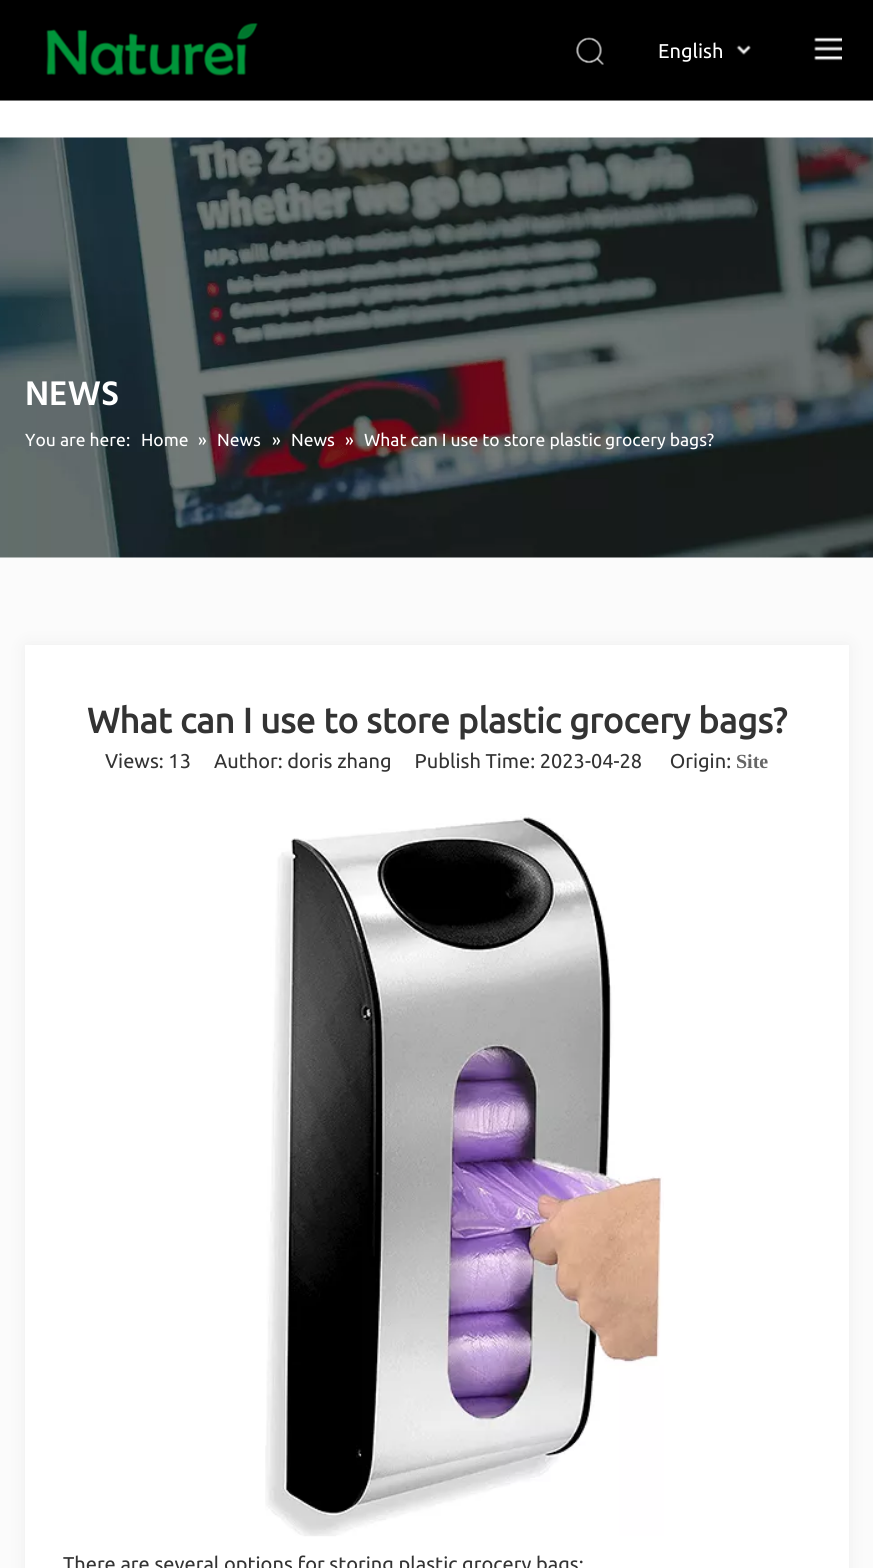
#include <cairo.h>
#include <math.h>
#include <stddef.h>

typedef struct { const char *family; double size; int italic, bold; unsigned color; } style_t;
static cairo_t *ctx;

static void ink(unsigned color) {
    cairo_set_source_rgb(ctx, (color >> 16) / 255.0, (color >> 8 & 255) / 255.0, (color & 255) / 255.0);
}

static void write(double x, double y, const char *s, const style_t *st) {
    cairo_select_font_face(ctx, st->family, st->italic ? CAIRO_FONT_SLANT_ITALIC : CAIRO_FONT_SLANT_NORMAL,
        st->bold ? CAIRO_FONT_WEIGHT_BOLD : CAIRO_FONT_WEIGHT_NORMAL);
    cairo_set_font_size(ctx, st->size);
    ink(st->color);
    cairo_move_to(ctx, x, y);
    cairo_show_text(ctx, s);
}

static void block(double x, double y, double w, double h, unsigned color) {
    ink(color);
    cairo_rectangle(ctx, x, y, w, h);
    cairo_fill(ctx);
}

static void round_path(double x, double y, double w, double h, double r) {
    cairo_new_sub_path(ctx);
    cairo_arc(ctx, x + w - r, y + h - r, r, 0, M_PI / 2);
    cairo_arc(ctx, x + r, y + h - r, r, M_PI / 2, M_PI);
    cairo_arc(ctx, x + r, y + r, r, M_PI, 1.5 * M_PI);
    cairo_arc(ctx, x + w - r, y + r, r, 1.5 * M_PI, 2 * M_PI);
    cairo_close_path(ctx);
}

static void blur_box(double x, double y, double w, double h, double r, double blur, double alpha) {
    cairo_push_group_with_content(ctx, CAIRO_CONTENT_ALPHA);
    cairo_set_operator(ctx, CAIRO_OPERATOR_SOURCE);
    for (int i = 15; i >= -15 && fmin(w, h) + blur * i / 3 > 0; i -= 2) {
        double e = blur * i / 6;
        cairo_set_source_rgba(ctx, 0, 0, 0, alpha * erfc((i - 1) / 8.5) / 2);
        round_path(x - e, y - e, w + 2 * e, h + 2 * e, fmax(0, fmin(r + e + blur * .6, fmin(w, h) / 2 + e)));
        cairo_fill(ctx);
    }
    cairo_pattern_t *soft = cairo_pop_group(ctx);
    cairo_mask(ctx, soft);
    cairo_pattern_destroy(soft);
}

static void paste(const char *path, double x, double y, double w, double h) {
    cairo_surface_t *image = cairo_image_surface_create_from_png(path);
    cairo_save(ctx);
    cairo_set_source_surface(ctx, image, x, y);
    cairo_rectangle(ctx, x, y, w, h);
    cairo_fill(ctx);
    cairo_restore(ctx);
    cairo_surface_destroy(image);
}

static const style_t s1 = {"Ubuntu", 20, 0, 0, 0xffffff};
static const style_t s2 = {"Hind SemiBold", 35, 0, 0, 0xffffff};
static const style_t s3 = {"Ubuntu", 17.5, 0, 0, 0xffffff};
static const style_t s4 = {"Ubuntu", 35, 0, 1, 0x333333};
static const style_t s5 = {"Ubuntu", 20, 0, 0, 0x333333};
static const style_t s6 = {"Liberation Serif", 20, 0, 1, 0x666666};

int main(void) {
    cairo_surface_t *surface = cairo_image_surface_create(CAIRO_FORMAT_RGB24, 873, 1568);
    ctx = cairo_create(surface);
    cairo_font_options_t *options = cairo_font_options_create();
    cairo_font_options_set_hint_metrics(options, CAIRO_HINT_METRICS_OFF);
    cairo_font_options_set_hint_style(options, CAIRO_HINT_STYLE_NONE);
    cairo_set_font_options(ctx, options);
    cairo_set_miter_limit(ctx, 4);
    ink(0xffffff);
    cairo_paint(ctx);
    block(0, 0, 873, 100, 0x000000);
    block(0, 100, 873, 1, 0x737373);
    paste("pic1.png", 46, 23, 212, 53);
    paste("pic2.png", 576, 37, 28, 28);
    write(658, 58, "English", &s1);
    paste("pic3.png", 736, 45, 15, 10);
    paste("pic4.png", 814, 37, 28, 24);
    paste("pic5.png", 0, 137, 873, 421);
    write(25, 405, "NEWS", &s2);
    write(25, 446, "You are here:", &s3);
    write(141, 446, "Home", &s3);
    write(198, 446, "»", &s3);
    write(217, 446, "News", &s3);
    write(272, 446, "»", &s3);
    write(291, 446, "News", &s3);
    write(345, 446, "»", &s3);
    write(364, 446, "What can I use to store plastic grocery bags?", &s3);
    block(0, 558, 873, 1010, 0xfbfbfb);
    ink(0x000000);
    blur_box(26, 646, 822, 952, 0, 10, 0.06);
    block(25, 645, 824, 923, 0xffffff);
    write(87, 733, "What can I use to store plastic grocery bags?", &s4);
    write(105, 768, "Views: 13", &s5);
    write(214, 768, "Author: doris zhang     Publish Time: 2023-04-28      Origin:", &s5);
    write(736, 768, "Site", &s6);
    paste("pic6.png", 265, 814, 399, 723);
    write(63, 1571, "There are several options for storing plastic grocery bags:", &s5);
    cairo_surface_write_to_png(surface, "screenshot.png");
    cairo_font_options_destroy(options);
    cairo_destroy(ctx);
    cairo_surface_destroy(surface);
    return 0;
}
